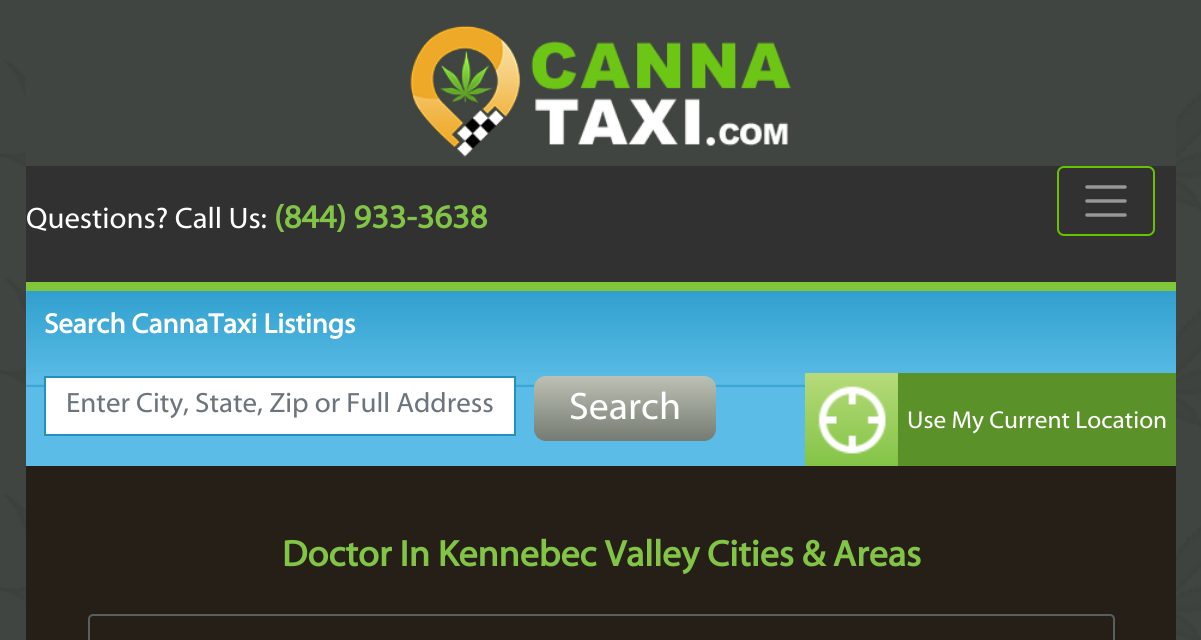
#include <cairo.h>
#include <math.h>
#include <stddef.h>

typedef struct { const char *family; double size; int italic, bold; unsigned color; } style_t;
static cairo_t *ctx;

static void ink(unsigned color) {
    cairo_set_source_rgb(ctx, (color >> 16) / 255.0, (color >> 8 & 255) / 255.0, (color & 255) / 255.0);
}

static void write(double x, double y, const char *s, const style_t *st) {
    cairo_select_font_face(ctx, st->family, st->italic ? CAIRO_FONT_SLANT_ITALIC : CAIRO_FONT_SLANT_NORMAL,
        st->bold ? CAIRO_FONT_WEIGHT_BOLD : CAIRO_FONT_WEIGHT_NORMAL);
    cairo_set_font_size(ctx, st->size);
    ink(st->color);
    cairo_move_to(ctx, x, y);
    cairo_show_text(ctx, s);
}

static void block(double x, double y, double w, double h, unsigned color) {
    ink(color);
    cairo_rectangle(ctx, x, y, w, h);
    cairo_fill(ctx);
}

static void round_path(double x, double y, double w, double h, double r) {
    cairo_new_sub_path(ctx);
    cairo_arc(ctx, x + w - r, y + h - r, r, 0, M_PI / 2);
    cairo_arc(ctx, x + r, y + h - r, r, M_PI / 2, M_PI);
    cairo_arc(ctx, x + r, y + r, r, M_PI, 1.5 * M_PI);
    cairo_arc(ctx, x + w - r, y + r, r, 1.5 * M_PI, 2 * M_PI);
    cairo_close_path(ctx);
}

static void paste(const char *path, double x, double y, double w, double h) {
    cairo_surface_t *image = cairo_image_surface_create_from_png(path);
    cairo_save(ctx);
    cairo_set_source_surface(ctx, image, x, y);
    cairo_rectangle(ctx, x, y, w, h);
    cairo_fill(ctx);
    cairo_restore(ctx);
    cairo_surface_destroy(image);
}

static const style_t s1 = {"Myriad", 29.75, 0, 0, 0xffffff};
static const style_t s2 = {"Myriad", 33.25, 0, 1, 0x82c445};
static const style_t s3 = {"Myriad", 28, 0, 1, 0xffffff};
static const style_t s4 = {"Myriad", 28, 0, 0, 0x6c757d};
static const style_t s5 = {"Myriad", 38.5, 0, 0, 0xffffff};
static const style_t s6 = {"Myriad", 24.5, 0, 0, 0xffffff};
static const style_t s7 = {"Myriad", 36.75, 0, 1, 0x82c445};

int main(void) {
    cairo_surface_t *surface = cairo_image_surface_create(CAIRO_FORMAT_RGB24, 1201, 640);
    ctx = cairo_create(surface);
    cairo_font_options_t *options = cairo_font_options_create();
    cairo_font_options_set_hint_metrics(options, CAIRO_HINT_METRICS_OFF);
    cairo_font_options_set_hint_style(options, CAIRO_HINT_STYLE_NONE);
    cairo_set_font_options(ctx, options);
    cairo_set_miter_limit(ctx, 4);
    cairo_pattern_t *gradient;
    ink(0xffffff);
    cairo_paint(ctx);
    paste("pic1.png", 0, 0, 1201, 640);
    block(26, 2, 1150, 164, 0x414541);
    block(26, 282, 1150, 9, 0x7fc63a);
    paste("pic2.png", 410, 25, 381, 132);
    block(26, 166, 1150, 116, 0x313131);
    write(26, 228, "Questions? Call Us:", &s1);
    write(274, 228, "(844) 933-3638", &s2);
    round_path(1058, 167, 96, 68, 6);
    ink(0x64c401);
    cairo_stroke(ctx);
    cairo_new_path(ctx);
    cairo_move_to(ctx, 1087, 187);
    cairo_line_to(ctx, 1125, 187);
    cairo_move_to(ctx, 1087, 201);
    cairo_line_to(ctx, 1125, 201);
    cairo_move_to(ctx, 1087, 215);
    cairo_line_to(ctx, 1125, 215);
    ink(0x989898);
    cairo_set_line_width(ctx, 3.5);
    cairo_set_line_cap(ctx, CAIRO_LINE_CAP_ROUND);
    cairo_stroke(ctx);
    block(26, 291, 779, 175, 0x5bbce7);
    paste("pic3.png", 26, 291, 1150, 96);
    write(44, 333, "Search CannaTaxi Listings", &s3);
    cairo_rectangle(ctx, 45, 377, 470, 58);
    cairo_fill_preserve(ctx);
    ink(0x288fbc);
    cairo_set_line_width(ctx, 2);
    cairo_set_line_cap(ctx, CAIRO_LINE_CAP_BUTT);
    cairo_stroke(ctx);
    write(66, 412, "Enter City, State, Zip or Full Address", &s4);
    gradient = cairo_pattern_create_linear(625, 376, 625, 441);
    cairo_pattern_add_color_stop_rgba(gradient, 0, 0.741, 0.757, 0.71, 1);
    cairo_pattern_add_color_stop_rgba(gradient, 1, 0.459, 0.482, 0.447, 1);
    cairo_set_source(ctx, gradient);
    cairo_pattern_destroy(gradient);
    round_path(534, 376, 182, 65, 12);
    cairo_fill(ctx);
    write(569, 419, "Search", &s5);
    block(898, 373, 278, 93, 0x5a9128);
    gradient = cairo_pattern_create_linear(851, 373, 851, 466);
    cairo_pattern_add_color_stop_rgba(gradient, 0, 0.714, 0.855, 0.478, 1);
    cairo_pattern_add_color_stop_rgba(gradient, 1, 0.514, 0.769, 0.275, 1);
    cairo_set_source(ctx, gradient);
    cairo_pattern_destroy(gradient);
    cairo_rectangle(ctx, 805, 373, 93, 93);
    cairo_fill(ctx);
    paste("pic4.png", 818, 386, 68, 68);
    write(907, 428, "Use My Current Location", &s6);
    block(26, 466, 1150, 174, 0x261f17);
    write(282, 566, "Doctor In Kennebec Valley Cities & Areas", &s7);
    round_path(89, 615, 1025, 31, 4);
    ink(0x585f60);
    cairo_stroke(ctx);
    cairo_surface_write_to_png(surface, "screenshot.png");
    cairo_font_options_destroy(options);
    cairo_destroy(ctx);
    cairo_surface_destroy(surface);
    return 0;
}
